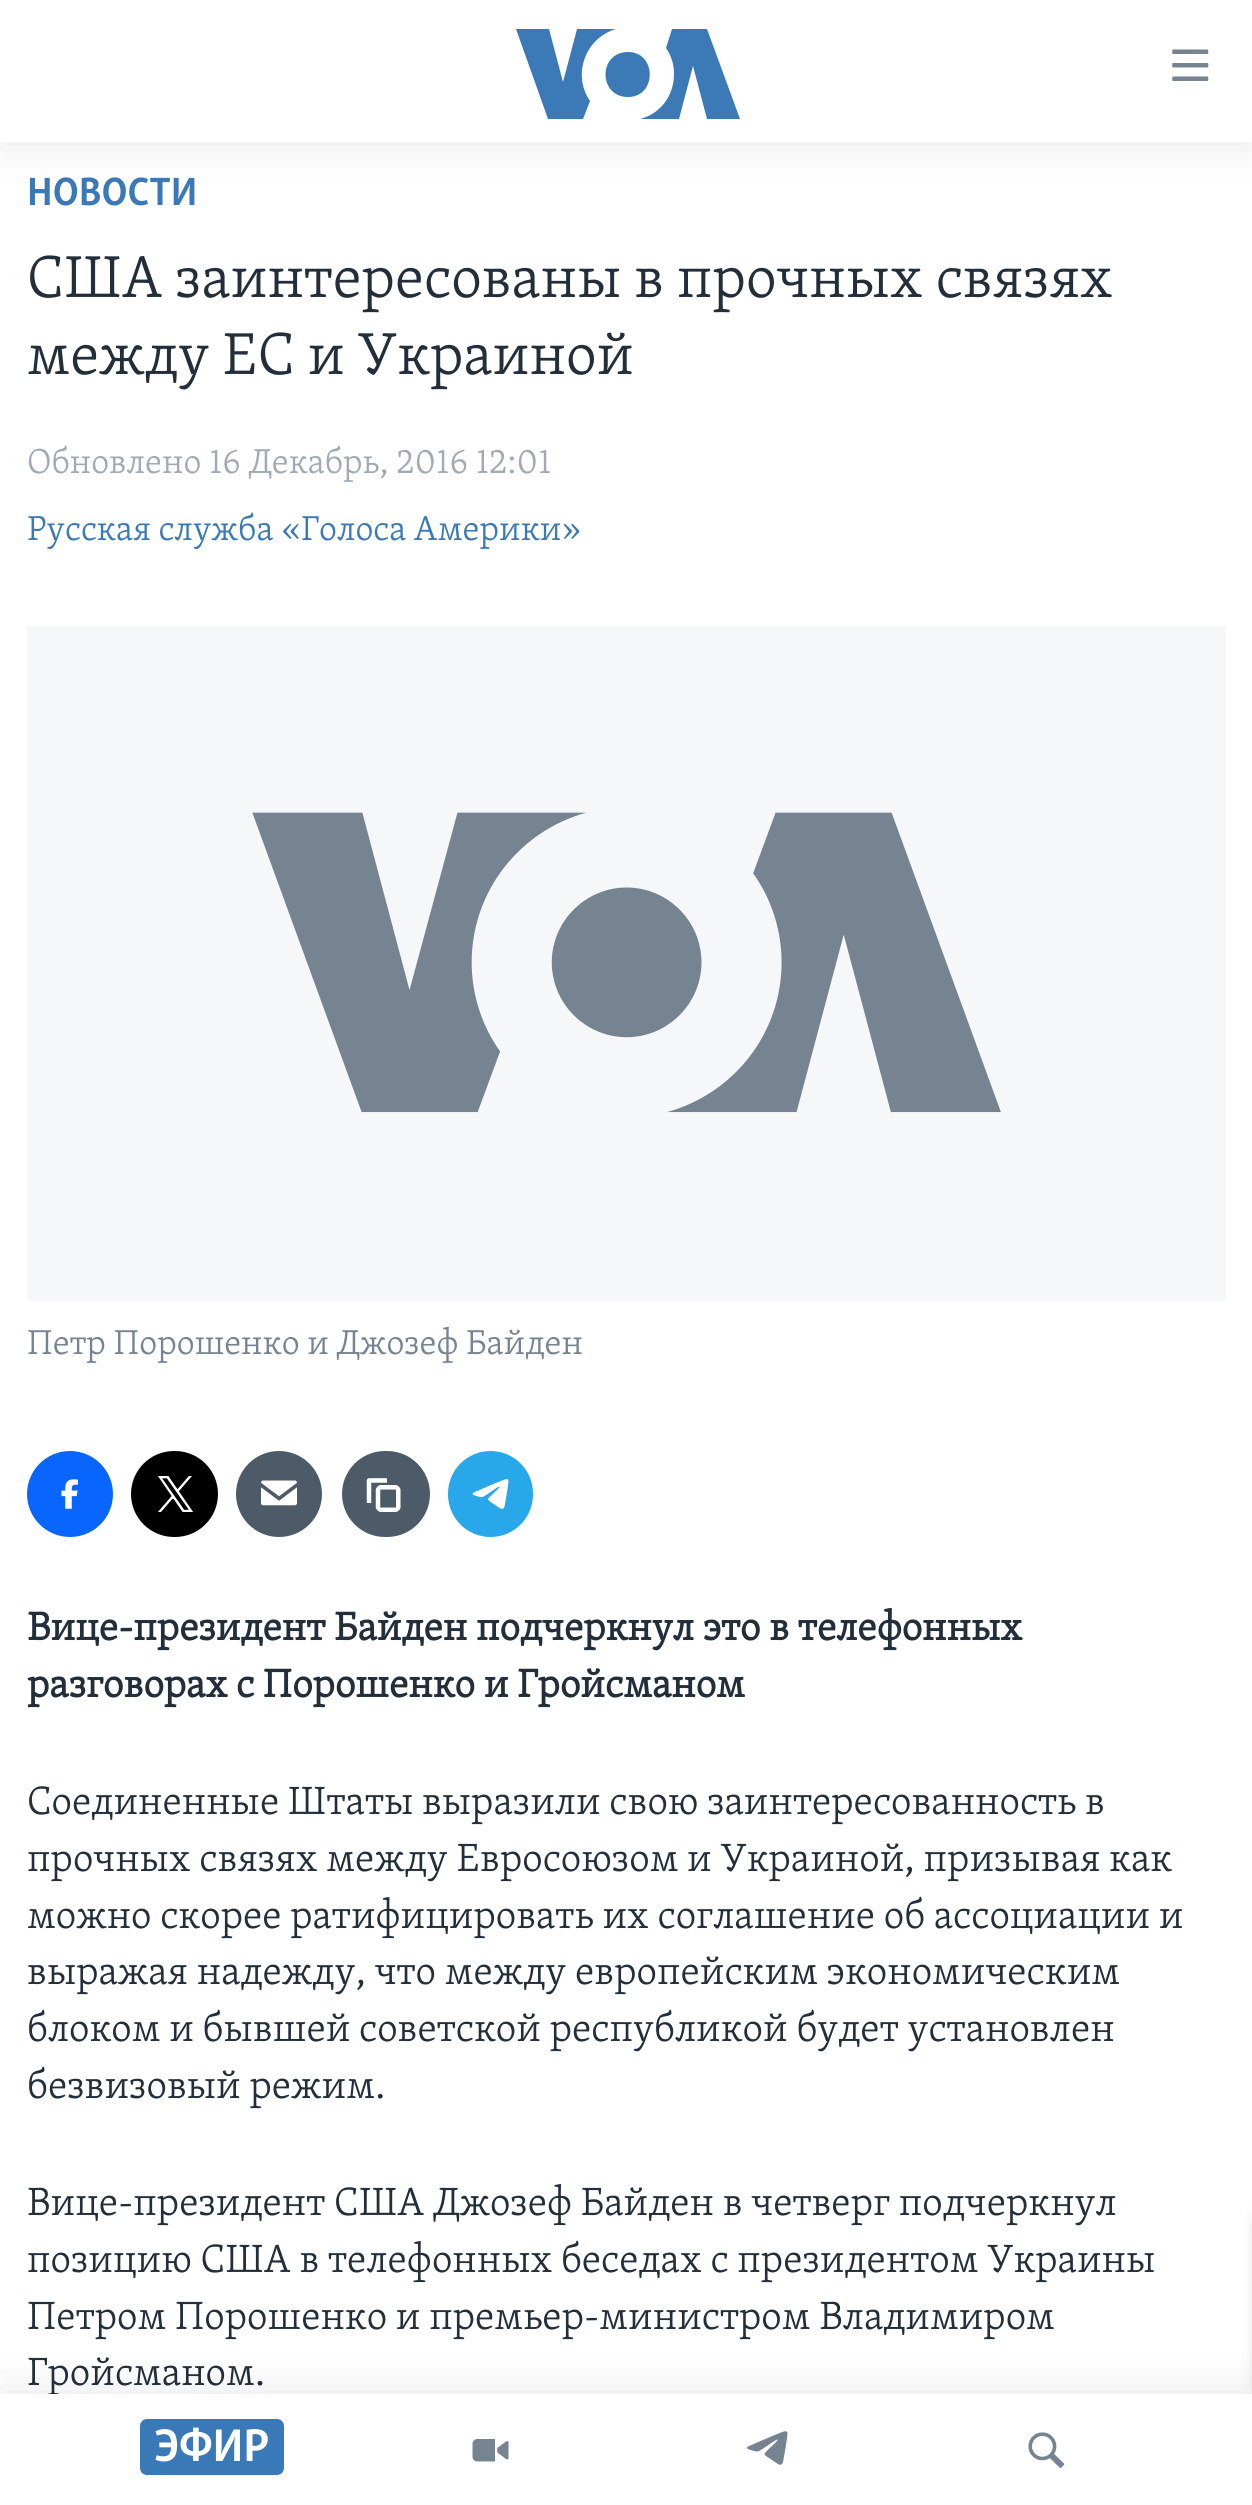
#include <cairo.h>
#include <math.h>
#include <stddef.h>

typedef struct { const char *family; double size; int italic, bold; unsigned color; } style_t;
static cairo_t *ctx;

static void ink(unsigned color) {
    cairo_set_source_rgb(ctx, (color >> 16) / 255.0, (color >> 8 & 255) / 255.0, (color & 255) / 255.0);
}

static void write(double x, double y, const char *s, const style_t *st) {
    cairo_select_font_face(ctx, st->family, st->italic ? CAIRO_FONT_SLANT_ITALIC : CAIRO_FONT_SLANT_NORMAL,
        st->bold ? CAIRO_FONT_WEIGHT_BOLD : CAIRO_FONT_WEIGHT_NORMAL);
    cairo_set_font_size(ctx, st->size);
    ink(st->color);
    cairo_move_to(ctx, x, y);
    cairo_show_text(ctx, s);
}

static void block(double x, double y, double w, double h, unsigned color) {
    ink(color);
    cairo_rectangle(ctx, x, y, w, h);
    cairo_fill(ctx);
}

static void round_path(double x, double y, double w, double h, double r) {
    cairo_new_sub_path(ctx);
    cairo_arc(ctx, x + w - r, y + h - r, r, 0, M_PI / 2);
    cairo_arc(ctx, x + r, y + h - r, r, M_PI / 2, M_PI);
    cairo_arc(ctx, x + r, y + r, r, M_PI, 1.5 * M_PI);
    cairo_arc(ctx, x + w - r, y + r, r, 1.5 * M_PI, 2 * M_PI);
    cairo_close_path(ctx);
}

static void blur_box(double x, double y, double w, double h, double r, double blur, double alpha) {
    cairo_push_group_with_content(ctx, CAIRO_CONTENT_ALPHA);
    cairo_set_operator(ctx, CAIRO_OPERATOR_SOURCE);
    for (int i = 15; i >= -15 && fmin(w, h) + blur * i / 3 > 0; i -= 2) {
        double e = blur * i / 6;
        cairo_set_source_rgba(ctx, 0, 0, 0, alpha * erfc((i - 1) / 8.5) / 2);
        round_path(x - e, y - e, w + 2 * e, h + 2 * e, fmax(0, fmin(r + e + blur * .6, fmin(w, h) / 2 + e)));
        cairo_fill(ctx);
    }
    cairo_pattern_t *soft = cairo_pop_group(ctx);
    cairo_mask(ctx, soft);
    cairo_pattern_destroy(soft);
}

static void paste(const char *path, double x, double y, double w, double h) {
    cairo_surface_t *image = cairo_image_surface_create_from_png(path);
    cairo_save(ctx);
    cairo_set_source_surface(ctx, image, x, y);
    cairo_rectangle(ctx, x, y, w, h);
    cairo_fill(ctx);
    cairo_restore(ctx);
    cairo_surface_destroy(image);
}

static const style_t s1 = {"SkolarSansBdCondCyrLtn", 40.5, 0, 1, 0x3a79b7};
static const style_t s2 = {"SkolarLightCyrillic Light", 60.75, 0, 0, 0x222f3a};
static const style_t s3 = {"SkolarLightCyrillic Light", 35.5, 0, 0, 0xa1aab4};
static const style_t s4 = {"SkolarLightCyrillic Light", 35.5, 0, 0, 0x3a79b7};
static const style_t s5 = {"SkolarLightCyrillic Light", 35.5, 0, 0, 0x768492};
static const style_t s6 = {"SkolarLightCyrillic", 40.5, 0, 1, 0x222f3a};
static const style_t s7 = {"SkolarLightCyrillic Light", 40.5, 0, 0, 0x222f3a};
static const style_t s8 = {"SkolarSansBdCondCyrLtn", 47, 0, 1, 0xffffff};

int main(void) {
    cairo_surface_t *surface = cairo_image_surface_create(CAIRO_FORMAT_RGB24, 1252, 2505);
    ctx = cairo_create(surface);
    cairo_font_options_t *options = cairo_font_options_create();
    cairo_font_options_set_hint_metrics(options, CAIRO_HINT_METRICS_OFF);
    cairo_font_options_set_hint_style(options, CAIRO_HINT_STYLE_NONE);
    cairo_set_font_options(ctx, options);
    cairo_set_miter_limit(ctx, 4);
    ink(0xffffff);
    cairo_paint(ctx);
    write(27, 205, "НОВОСТИ", &s1);
    write(27, 297, "США заинтересованы в прочных связях", &s2);
    write(27, 374, "между ЕС и Украиной", &s2);
    write(27, 473, "Обновлено 16 Декабрь, 2016 12:01", &s3);
    write(27, 540, "Русская служба «Голоса Америки»", &s4);
    block(27, 626, 1199, 675, 0xf6f7f8);
    paste("pic1.png", 252, 812, 749, 301);
    write(27, 1354, "Петр Порошенко и Джозеф Байден", &s5);
    ink(0x0866ff);
    cairo_new_path(ctx);
    cairo_arc(ctx, 70, 1494, 43, 0, 2 * M_PI);
    cairo_fill(ctx);
    paste("pic2.png", 61, 1479, 17, 30);
    ink(0x000000);
    round_path(131, 1451, 87, 86, 43);
    cairo_fill(ctx);
    paste("pic3.png", 158, 1476, 35, 36);
    ink(0x4d5a67);
    cairo_arc(ctx, 279, 1494, 43, 0, 2 * M_PI);
    cairo_fill(ctx);
    paste("pic4.png", 261, 1480, 36, 26);
    round_path(342, 1451, 88, 86, 43);
    cairo_fill(ctx);
    paste("pic5.png", 366, 1478, 35, 34);
    ink(0x28a8ea);
    round_path(448, 1451, 85, 86, 42.5);
    cairo_fill(ctx);
    paste("pic6.png", 472, 1479, 37, 30);
    write(27, 1640, "Вице-президент Байден подчеркнул это в телефонных", &s6);
    write(27, 1697, "разговорах с Порошенко и Гройсманом", &s6);
    write(27, 1814, "Соединенные Штаты выразили свою заинтересованность в", &s7);
    write(27, 1871, "прочных связях между Евросоюзом и Украиной, призывая как", &s7);
    write(27, 1928, "можно скорее ратифицировать их соглашение об ассоциации и", &s7);
    write(27, 1984, "выражая надежду, что между европейским экономическим", &s7);
    write(27, 2041, "блоком и бывшей советской республикой будет установлен", &s7);
    write(27, 2098, "безвизовый режим.", &s7);
    write(27, 2215, "Вице-президент США Джозеф Байден в четверг подчеркнул", &s7);
    write(27, 2272, "позицию США в телефонных беседах с президентом Украины", &s7);
    write(27, 2329, "Петром Порошенко и премьер-министром Владимиром", &s7);
    write(27, 2385, "Гройсманом.", &s7);
    ink(0x000000);
    blur_box(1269, 2219, 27, 175, 11, 11, 0.85);
    blur_box(0, 0, 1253, 142, 0, 22.5, 0.1);
    block(0, 0, 1252, 142, 0xffffff);
    ink(0x3b79b7);
    cairo_new_path(ctx);
    cairo_move_to(ctx, 590, 101);
    cairo_line_to(ctx, 583, 119);
    cairo_line_to(ctx, 548, 119);
    cairo_line_to(ctx, 516, 29);
    cairo_line_to(ctx, 549, 29);
    cairo_line_to(ctx, 563, 82);
    cairo_line_to(ctx, 577, 29);
    cairo_line_to(ctx, 616, 29);
    cairo_curve_to(ctx, 585, 38, 572, 75, 590, 101);
    cairo_close_path(ctx);
    cairo_move_to(ctx, 628, 52);
    cairo_curve_to(ctx, 598, 52, 598, 97, 628, 97);
    cairo_curve_to(ctx, 657, 97, 657, 52, 628, 52);
    cairo_close_path(ctx);
    cairo_move_to(ctx, 674, 74);
    cairo_curve_to(ctx, 674, 96, 660, 114, 640, 119);
    cairo_line_to(ctx, 679, 119);
    cairo_line_to(ctx, 693, 66);
    cairo_line_to(ctx, 707, 119);
    cairo_line_to(ctx, 740, 119);
    cairo_line_to(ctx, 707, 29);
    cairo_line_to(ctx, 672, 29);
    cairo_line_to(ctx, 666, 48);
    cairo_curve_to(ctx, 671, 55, 674, 64, 674, 74);
    cairo_close_path(ctx);
    cairo_fill(ctx);
    paste("pic7.png", 1172, 49, 37, 32);
    ink(0x000000);
    blur_box(0, 2394, 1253, 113, 0, 22.5, 0.1);
    block(0, 2394, 1252, 111, 0xffffff);
    ink(0x3a79b7);
    round_path(140, 2419, 144, 56, 7);
    cairo_fill(ctx);
    write(154, 2461, "ЭФИР", &s8);
    paste("pic8.png", 472, 2439, 37, 23);
    paste("pic9.png", 747, 2431, 41, 34);
    paste("pic10.png", 1028, 2432, 37, 37);
    cairo_surface_write_to_png(surface, "screenshot.png");
    cairo_font_options_destroy(options);
    cairo_destroy(ctx);
    cairo_surface_destroy(surface);
    return 0;
}
